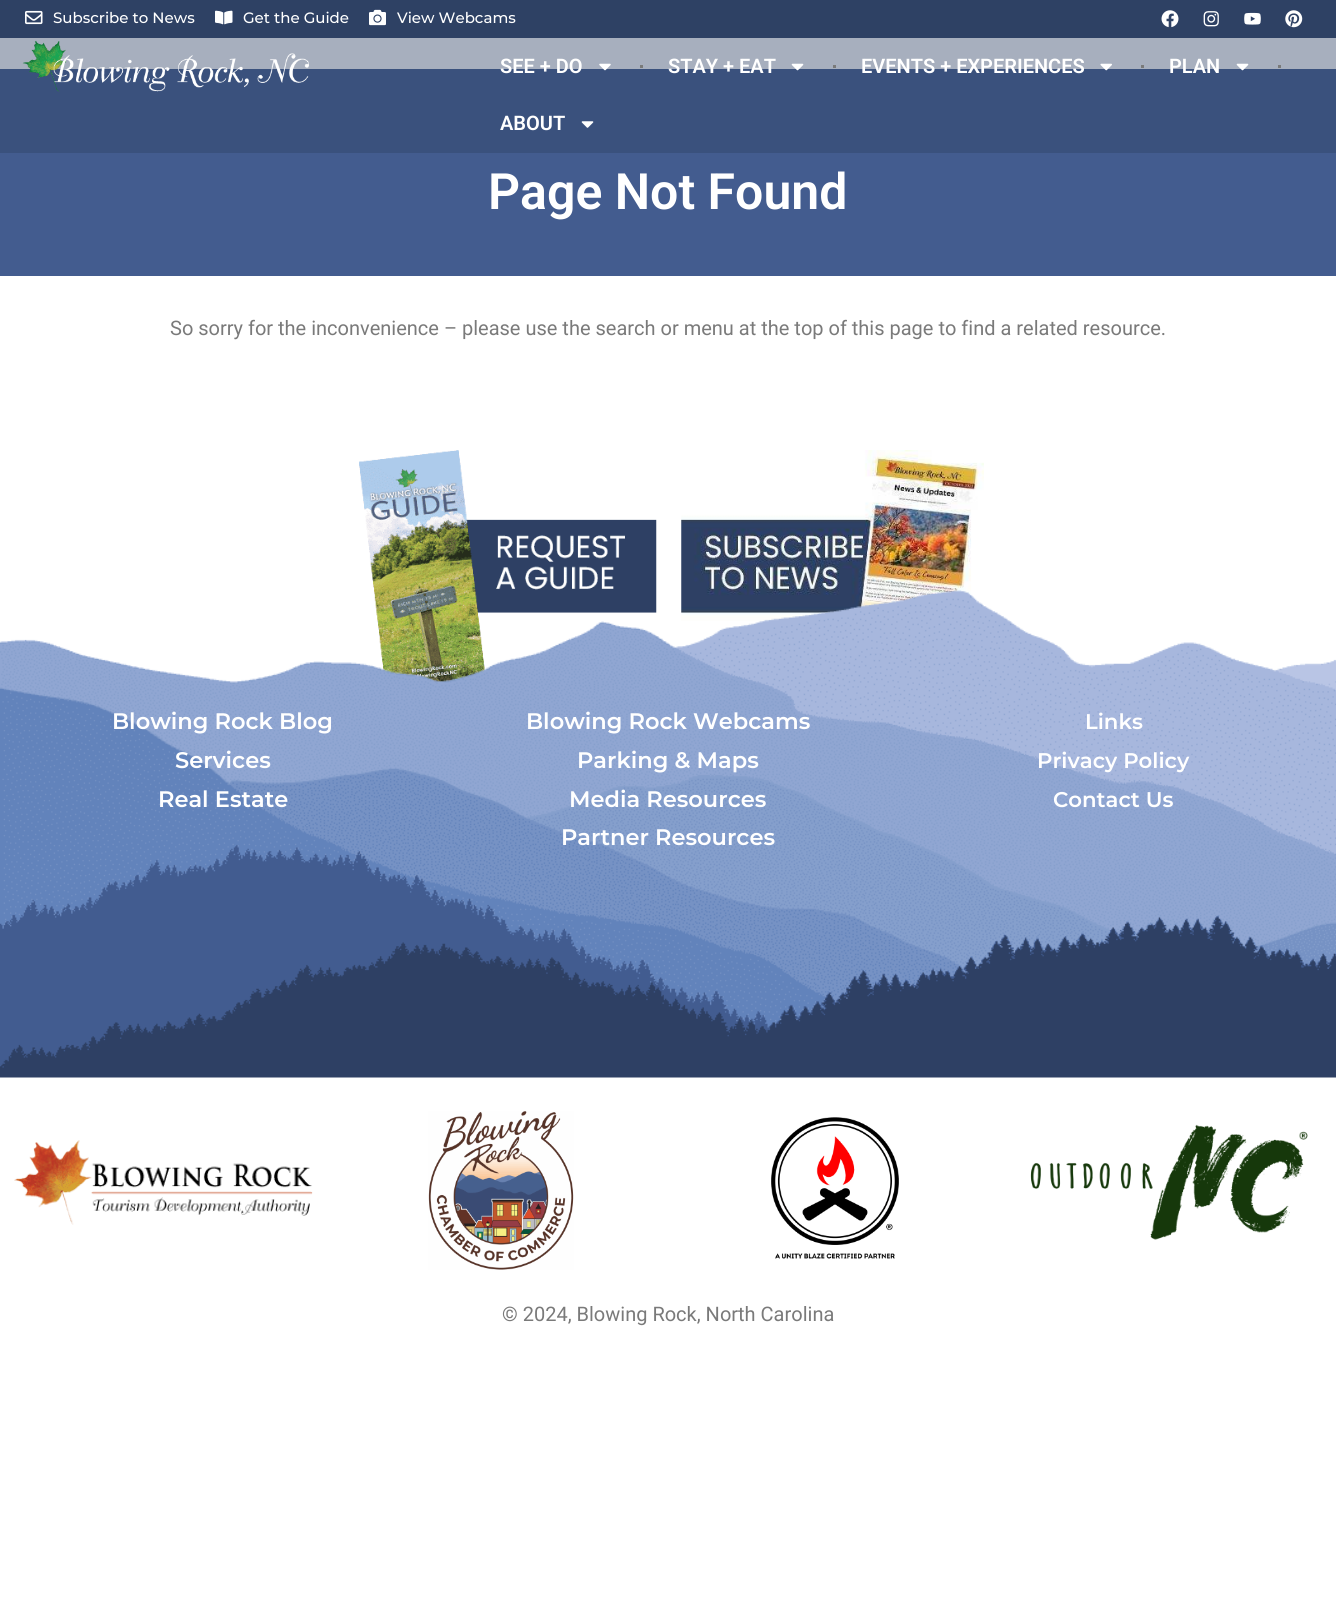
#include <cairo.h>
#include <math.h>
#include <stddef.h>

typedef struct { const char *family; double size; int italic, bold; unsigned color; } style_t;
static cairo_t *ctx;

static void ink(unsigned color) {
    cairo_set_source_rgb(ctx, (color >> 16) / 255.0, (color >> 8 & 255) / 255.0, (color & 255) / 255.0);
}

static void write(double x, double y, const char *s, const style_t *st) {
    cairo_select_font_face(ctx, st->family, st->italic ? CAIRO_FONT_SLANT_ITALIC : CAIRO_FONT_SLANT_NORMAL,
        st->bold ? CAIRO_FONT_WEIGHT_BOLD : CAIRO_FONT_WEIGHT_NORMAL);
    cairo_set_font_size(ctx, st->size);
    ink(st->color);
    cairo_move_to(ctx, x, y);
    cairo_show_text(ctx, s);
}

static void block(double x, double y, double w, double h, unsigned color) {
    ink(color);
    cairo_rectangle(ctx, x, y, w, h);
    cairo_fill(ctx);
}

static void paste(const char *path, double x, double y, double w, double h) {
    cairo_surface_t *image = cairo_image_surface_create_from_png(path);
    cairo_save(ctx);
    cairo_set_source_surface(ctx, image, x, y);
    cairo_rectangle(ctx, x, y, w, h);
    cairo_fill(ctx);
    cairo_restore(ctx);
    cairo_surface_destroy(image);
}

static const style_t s1 = {"Montserrat Medium", 15, 0, 0, 0xffffff};
static const style_t s2 = {"Roboto SemiBold", 20, 0, 0, 0xffffff};
static const style_t s3 = {"Roboto SemiBold", 50, 0, 0, 0xffffff};
static const style_t s4 = {"Roboto", 20, 0, 0, 0x7a7a7a};
static const style_t s5 = {"Montserrat SemiBold", 22.5, 0, 0, 0xffffff};
static const style_t s6 = {"Montserrat SemiBold", 21.25, 0, 0, 0xffffff};

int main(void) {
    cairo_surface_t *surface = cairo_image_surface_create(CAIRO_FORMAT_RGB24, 1336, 1599);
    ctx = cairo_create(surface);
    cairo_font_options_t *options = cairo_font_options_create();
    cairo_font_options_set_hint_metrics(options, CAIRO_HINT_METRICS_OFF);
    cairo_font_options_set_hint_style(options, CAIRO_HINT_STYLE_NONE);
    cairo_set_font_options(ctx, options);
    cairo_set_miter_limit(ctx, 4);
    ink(0xffffff);
    cairo_paint(ctx);
    block(0, 38, 1336, 31, 0xa7afbe);
    block(0, 0, 1336, 38, 0x2e4164);
    paste("pic1.png", 25, 10, 18, 15);
    write(53, 23, "Subscribe to News", &s1);
    paste("pic2.png", 215, 10, 18, 15);
    write(243, 23, "Get the Guide", &s1);
    paste("pic3.png", 369, 9, 17, 17);
    write(397, 23, "View Webcams", &s1);
    paste("pic4.png", 1161, 10, 18, 18);
    paste("pic5.png", 1203, 11, 16, 16);
    paste("pic6.png", 1244, 12, 17, 13);
    paste("pic7.png", 1285, 10, 18, 18);
    block(0, 69, 1336, 84, 0x3a517d);
    paste("pic8.png", 22, 40, 287, 52);
    write(500, 73, "SEE + DO", &s2);
    paste("pic9.png", 599, 63, 12, 8);
    block(640, 65, 3, 3, 0x7a7a7a);
    write(668, 73, "STAY + EAT", &s2);
    paste("pic10.png", 791, 63, 13, 8);
    block(833, 65, 3, 3, 0x7a7a7a);
    write(861, 73, "EVENTS + EXPERIENCES", &s2);
    paste("pic11.png", 1100, 63, 12, 8);
    block(1141, 65, 3, 3, 0x7a7a7a);
    write(1169, 73, "PLAN", &s2);
    paste("pic10.png", 1236, 63, 13, 8);
    block(1278, 65, 3, 3, 0x7a7a7a);
    write(500, 130, "ABOUT", &s2);
    paste("pic12.png", 581, 121, 13, 7);
    block(0, 153, 1336, 123, 0x435c8f);
    write(488, 209, "Page Not Found", &s3);
    write(170, 335, "So sorry for the inconvenience – please use the search or menu at the top of this page to find a related resource.", &s4);
    paste("pic13.png", 359, 450, 298, 232);
    paste("pic14.png", 681, 450, 303, 198);
    paste("pic15.png", 0, 590, 1336, 488);
    write(112, 729, "Blowing Rock Blog", &s5);
    write(175, 768, "Services", &s5);
    write(158, 807, "Real Estate", &s5);
    write(526, 729, "Blowing Rock Webcams", &s5);
    write(577, 768, "Parking & Maps", &s5);
    write(569, 807, "Media Resources", &s5);
    write(561, 845, "Partner Resources", &s5);
    write(1085, 729, "Links", &s6);
    write(1037, 768, "Privacy Policy", &s6);
    write(1053, 807, "Contact Us", &s6);
    paste("pic16.png", 14, 1140, 299, 85);
    paste("pic17.png", 428, 1111, 146, 159);
    paste("pic18.png", 771, 1117, 128, 142);
    paste("pic19.png", 1030, 1124, 278, 116);
    write(502, 1321, "© 2024, Blowing Rock, North Carolina", &s4);
    cairo_surface_write_to_png(surface, "screenshot.png");
    cairo_font_options_destroy(options);
    cairo_destroy(ctx);
    cairo_surface_destroy(surface);
    return 0;
}
